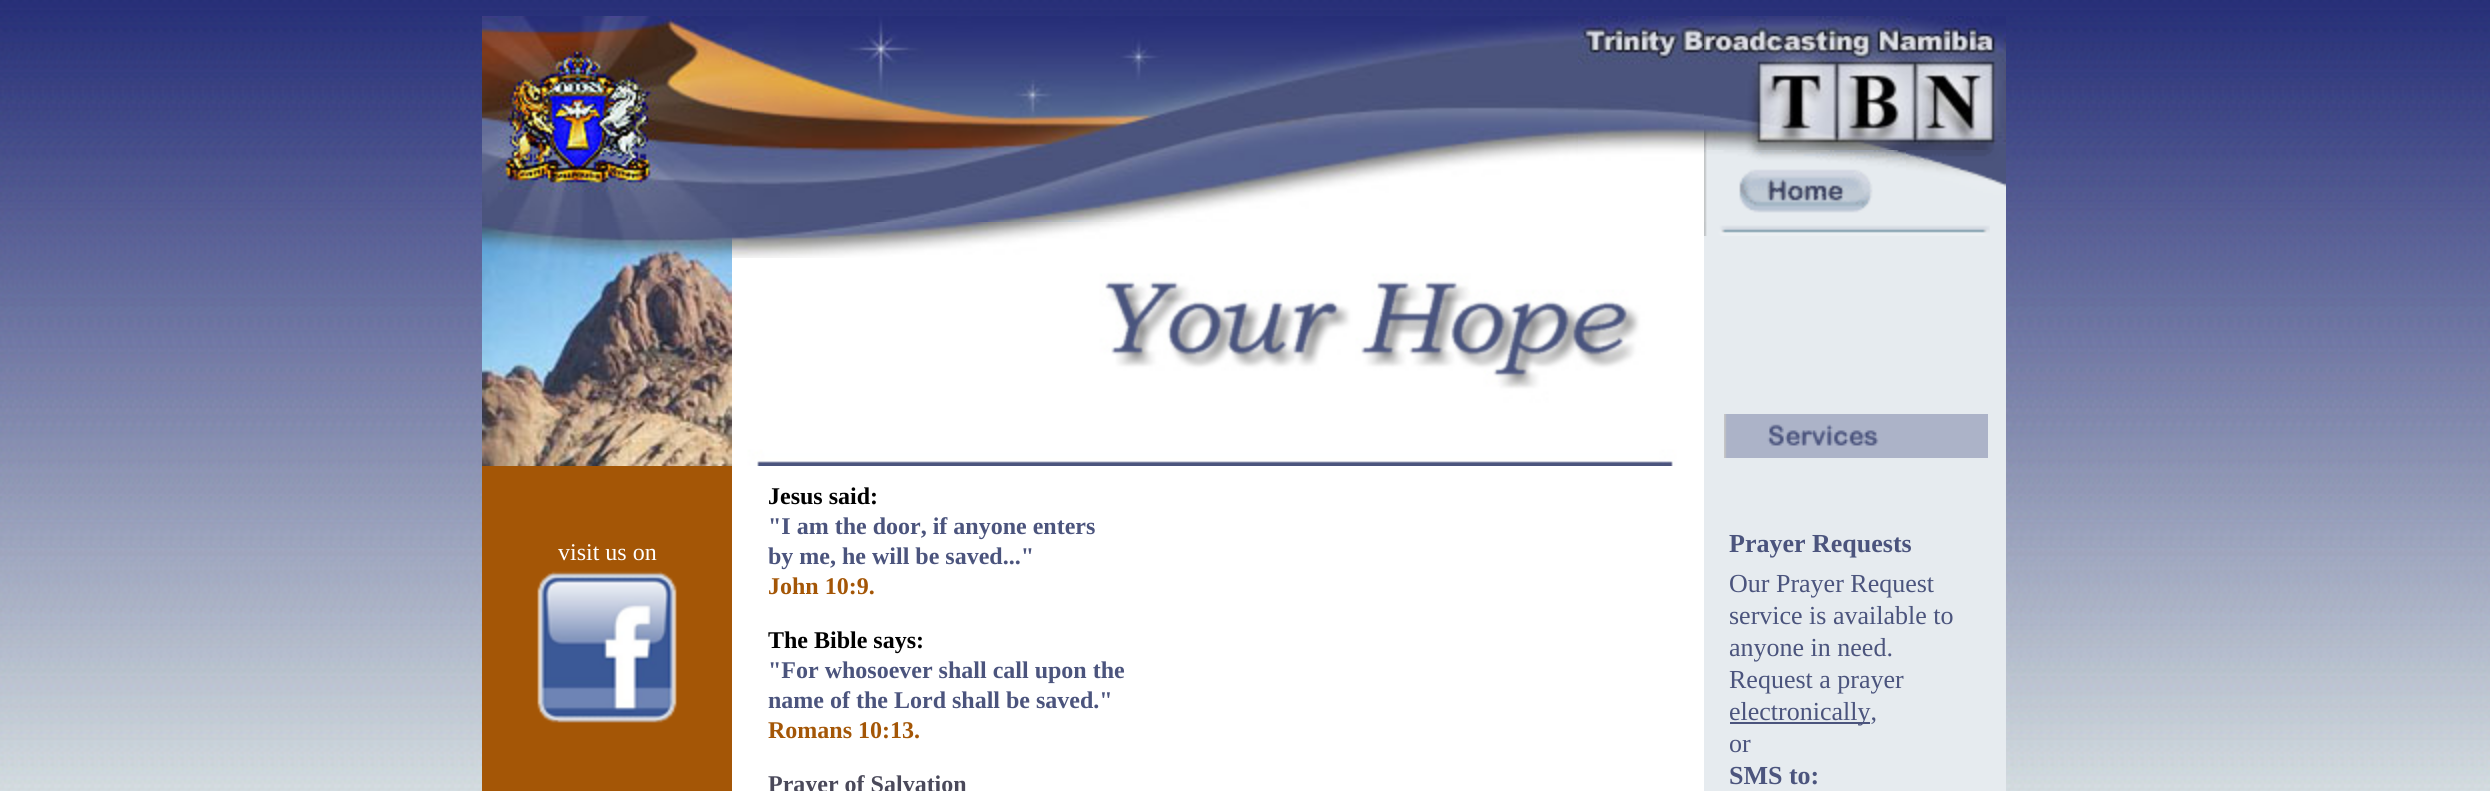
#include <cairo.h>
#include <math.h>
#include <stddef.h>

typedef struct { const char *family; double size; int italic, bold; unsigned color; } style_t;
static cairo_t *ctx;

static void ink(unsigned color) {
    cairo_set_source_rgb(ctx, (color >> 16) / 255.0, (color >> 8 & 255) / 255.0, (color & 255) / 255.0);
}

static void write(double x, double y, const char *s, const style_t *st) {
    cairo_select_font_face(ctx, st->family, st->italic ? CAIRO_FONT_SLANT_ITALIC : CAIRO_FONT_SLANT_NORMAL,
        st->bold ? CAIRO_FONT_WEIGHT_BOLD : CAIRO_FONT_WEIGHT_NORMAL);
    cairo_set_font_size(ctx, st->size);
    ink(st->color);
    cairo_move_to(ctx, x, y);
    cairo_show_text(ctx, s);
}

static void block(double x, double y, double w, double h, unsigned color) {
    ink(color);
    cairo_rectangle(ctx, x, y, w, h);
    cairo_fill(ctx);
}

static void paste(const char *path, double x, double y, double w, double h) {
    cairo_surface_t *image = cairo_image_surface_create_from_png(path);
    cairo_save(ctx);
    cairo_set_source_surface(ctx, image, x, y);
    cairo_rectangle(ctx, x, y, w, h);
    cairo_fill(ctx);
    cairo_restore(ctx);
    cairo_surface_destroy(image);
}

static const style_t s1 = {"Liberation Serif", 24, 0, 0, 0xffffff};
static const style_t s2 = {"Liberation Serif", 24, 0, 1, 0x000000};
static const style_t s3 = {"Liberation Serif", 24, 0, 1, 0x4b547d};
static const style_t s4 = {"Liberation Serif", 24, 0, 1, 0xa45606};
static const style_t s5 = {"Liberation Serif", 24, 0, 1, 0x4a495a};
static const style_t s6 = {"Liberation Serif", 26, 0, 1, 0x4b547d};
static const style_t s7 = {"Liberation Serif", 26, 0, 0, 0x4b547d};

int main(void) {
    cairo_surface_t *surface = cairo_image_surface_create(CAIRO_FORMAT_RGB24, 2490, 791);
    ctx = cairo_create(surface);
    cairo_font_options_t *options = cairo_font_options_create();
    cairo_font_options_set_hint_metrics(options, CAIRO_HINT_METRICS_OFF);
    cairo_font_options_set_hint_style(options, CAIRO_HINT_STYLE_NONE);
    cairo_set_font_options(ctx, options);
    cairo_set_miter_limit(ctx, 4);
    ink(0xffffff);
    cairo_paint(ctx);
    paste("pic1.png", 0, 0, 2490, 791);
    paste("pic2.png", 482, 16, 250, 206);
    paste("pic3.png", 732, 16, 846, 206);
    paste("pic4.png", 1578, 16, 126, 206);
    paste("pic5.png", 1704, 16, 302, 134);
    paste("pic6.png", 1704, 150, 202, 72);
    paste("pic7.png", 1906, 150, 100, 72);
    paste("pic8.png", 732, 258, 972, 208);
    paste("pic9.png", 732, 222, 972, 36);
    block(1990, 222, 16, 14, 0xe6ebef);
    paste("pic10.png", 1704, 222, 286, 14);
    block(482, 466, 250, 325, 0xa45606);
    paste("pic11.png", 482, 222, 250, 244);
    write(558, 560, "visit us on", &s1);
    paste("pic12.png", 537, 571, 140, 152);
    block(732, 466, 972, 325, 0xffffff);
    write(768, 504, "Jesus said:", &s2);
    write(768, 534, "\"I am the door, if anyone enters", &s3);
    write(768, 564, "by me, he will be saved...\"", &s3);
    write(768, 594, "John 10:9.", &s4);
    write(768, 648, "The Bible says:", &s2);
    write(768, 678, "\"For whosoever shall call upon the", &s3);
    write(768, 708, "name of the Lord shall be saved.\"", &s3);
    write(768, 738, "Romans 10:13.", &s4);
    write(768, 792, "Prayer of Salvation", &s5);
    block(1704, 236, 302, 555, 0xe6ebef);
    paste("pic13.png", 1724, 414, 264, 44);
    write(1729, 552, "Prayer Requests", &s6);
    write(1729, 592, "Our Prayer Request", &s7);
    write(1729, 624, "service is available to", &s7);
    write(1729, 656, "anyone in need.", &s7);
    write(1729, 688, "Request a prayer", &s7);
    block(1730, 722, 140, 2, 0x4b547d);
    write(1729, 720, "electronically,", &s7);
    write(1729, 752, "or", &s7);
    write(1729, 784, "SMS to:", &s6);
    cairo_surface_write_to_png(surface, "screenshot.png");
    cairo_font_options_destroy(options);
    cairo_destroy(ctx);
    cairo_surface_destroy(surface);
    return 0;
}
